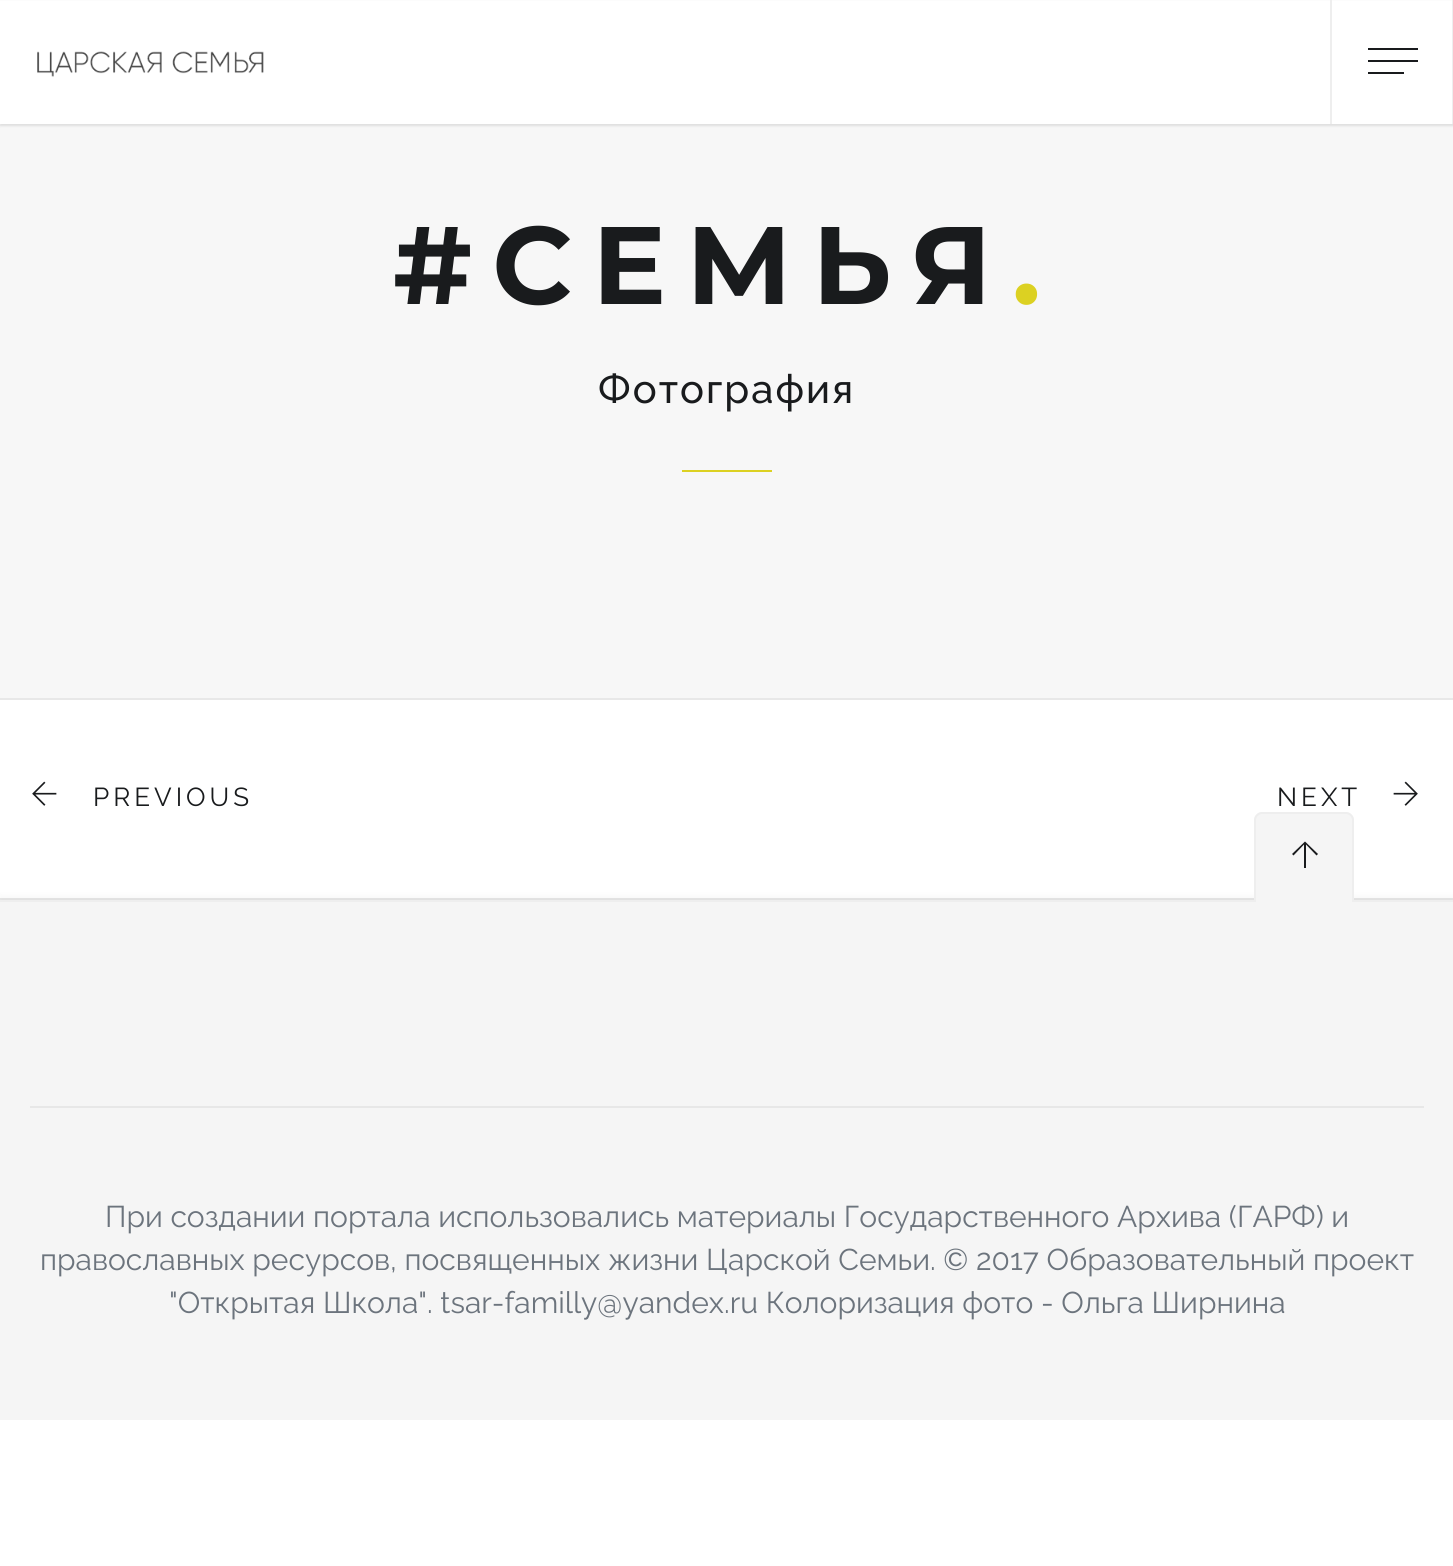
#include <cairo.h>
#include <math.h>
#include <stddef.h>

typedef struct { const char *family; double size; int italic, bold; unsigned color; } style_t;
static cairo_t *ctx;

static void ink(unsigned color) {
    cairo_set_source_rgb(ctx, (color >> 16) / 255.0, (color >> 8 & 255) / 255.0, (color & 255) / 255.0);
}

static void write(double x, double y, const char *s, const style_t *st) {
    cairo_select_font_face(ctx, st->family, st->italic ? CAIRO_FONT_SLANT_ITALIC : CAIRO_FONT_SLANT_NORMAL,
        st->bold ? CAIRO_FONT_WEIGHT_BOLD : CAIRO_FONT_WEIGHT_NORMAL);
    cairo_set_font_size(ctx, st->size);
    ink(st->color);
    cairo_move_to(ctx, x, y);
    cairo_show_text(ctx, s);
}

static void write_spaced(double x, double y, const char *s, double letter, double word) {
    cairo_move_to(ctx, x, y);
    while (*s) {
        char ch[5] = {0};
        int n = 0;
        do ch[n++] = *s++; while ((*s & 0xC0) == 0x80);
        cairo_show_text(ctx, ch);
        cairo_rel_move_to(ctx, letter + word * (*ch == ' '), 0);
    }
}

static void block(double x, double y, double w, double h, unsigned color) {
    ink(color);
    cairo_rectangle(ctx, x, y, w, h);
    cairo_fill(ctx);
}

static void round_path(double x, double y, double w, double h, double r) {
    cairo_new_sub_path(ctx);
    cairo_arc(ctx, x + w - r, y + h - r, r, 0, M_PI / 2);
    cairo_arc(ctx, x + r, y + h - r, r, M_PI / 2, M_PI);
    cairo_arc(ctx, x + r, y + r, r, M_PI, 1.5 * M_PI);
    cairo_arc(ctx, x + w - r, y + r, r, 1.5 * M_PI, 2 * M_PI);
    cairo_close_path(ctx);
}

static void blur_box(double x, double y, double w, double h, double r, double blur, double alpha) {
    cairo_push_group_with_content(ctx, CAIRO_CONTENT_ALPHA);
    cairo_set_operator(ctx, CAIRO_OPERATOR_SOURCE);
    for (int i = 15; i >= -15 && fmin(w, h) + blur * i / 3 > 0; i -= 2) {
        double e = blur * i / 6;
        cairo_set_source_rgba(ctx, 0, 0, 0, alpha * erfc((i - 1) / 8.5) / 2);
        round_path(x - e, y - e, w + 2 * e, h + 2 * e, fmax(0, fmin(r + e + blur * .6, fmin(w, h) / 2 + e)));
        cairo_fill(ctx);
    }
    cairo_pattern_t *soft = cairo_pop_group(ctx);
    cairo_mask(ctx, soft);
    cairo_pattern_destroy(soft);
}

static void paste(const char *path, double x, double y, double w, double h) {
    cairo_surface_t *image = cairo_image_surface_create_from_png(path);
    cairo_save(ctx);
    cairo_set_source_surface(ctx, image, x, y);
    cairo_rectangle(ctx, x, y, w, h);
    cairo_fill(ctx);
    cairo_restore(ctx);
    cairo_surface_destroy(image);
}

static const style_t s1 = {"Raleway", 30, 0, 0, 0x6c747d};

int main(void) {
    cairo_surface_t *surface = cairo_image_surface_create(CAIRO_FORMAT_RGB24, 1453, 1566);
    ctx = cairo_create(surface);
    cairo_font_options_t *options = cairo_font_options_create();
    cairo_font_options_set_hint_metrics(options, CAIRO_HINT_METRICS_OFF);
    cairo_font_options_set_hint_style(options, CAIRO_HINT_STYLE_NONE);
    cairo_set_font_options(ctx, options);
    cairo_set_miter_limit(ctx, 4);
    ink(0xffffff);
    cairo_paint(ctx);
    block(0, 124, 1453, 574, 0xf7f7f7);
    ink(0x000000);
    blur_box(0, 2, 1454, 124, 0, 1, 0.1);
    block(0, 1, 1452, 123, 0xffffff);
    paste("pic1.png", 37, 51, 227, 26);
    block(1452, 0, 1, 124, 0xeeeeee);
    block(1330, 0, 2, 124, 0xeeeeee);
    block(1368, 48, 50, 2, 0x191b1d);
    block(1368, 60, 50, 2, 0x191b1d);
    block(1368, 72, 36, 2, 0x191b1d);
    block(0, 698, 1453, 2, 0xe8e8e8);
    cairo_select_font_face(ctx, "Montserrat", CAIRO_FONT_SLANT_NORMAL, CAIRO_FONT_WEIGHT_BOLD);
    cairo_set_font_size(ctx, 110);
    ink(0x191b1d);
    write_spaced(393, 304, "#СЕМЬЯ", 20, 0);
    ink(0xdcd122);
    write_spaced(1012, 304, ".", 20, 0);
    cairo_select_font_face(ctx, "Raleway Medium", CAIRO_FONT_SLANT_NORMAL, CAIRO_FONT_WEIGHT_NORMAL);
    cairo_set_font_size(ctx, 40);
    ink(0x191b1d);
    write_spaced(598, 403, "Фотография", 2, 0);
    block(682, 470, 90, 2, 0xdcd122);
    block(0, 898, 1453, 2, 0xe8e8e8);
    paste("pic2.png", 32, 781, 25, 25);
    cairo_select_font_face(ctx, "Raleway", CAIRO_FONT_SLANT_NORMAL, CAIRO_FONT_WEIGHT_NORMAL);
    cairo_set_font_size(ctx, 26);
    ink(0x191b1d);
    write_spaced(93, 806, "PREVIOUS", 4, 0);
    write_spaced(1277, 806, "NEXT", 4, 0);
    paste("pic3.png", 1393, 781, 25, 25);
    ink(0x000000);
    blur_box(0, 898, 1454, 206, 0, 4, 0.05);
    block(0, 902, 1453, 518, 0xf5f5f5);
    block(0, 900, 1453, 2, 0xeeeeee);
    ink(0xf5f5f5);
    cairo_new_path(ctx);
    cairo_move_to(ctx, 1262, 812);
    cairo_line_to(ctx, 1346, 812);
    cairo_curve_to(ctx, 1350.5, 812, 1354, 815.5, 1354, 820);
    cairo_line_to(ctx, 1354, 902);
    cairo_line_to(ctx, 1254, 902);
    cairo_line_to(ctx, 1254, 820);
    cairo_curve_to(ctx, 1254, 815.5, 1257.5, 812, 1262, 812);
    cairo_close_path(ctx);
    cairo_fill(ctx);
    ink(0xeeeeee);
    cairo_set_fill_rule(ctx, CAIRO_FILL_RULE_EVEN_ODD);
    cairo_new_path(ctx);
    cairo_move_to(ctx, 1262, 812);
    cairo_line_to(ctx, 1346, 812);
    cairo_curve_to(ctx, 1350, 812, 1354, 816, 1354, 820);
    cairo_line_to(ctx, 1354, 902);
    cairo_line_to(ctx, 1254, 902);
    cairo_line_to(ctx, 1254, 820);
    cairo_curve_to(ctx, 1254, 816, 1258, 812, 1262, 812);
    cairo_close_path(ctx);
    cairo_move_to(ctx, 1262, 814);
    cairo_line_to(ctx, 1346, 814);
    cairo_curve_to(ctx, 1349, 814, 1352, 817, 1352, 820);
    cairo_line_to(ctx, 1352, 902);
    cairo_line_to(ctx, 1256, 902);
    cairo_line_to(ctx, 1256, 820);
    cairo_curve_to(ctx, 1256, 817, 1259, 814, 1262, 814);
    cairo_close_path(ctx);
    cairo_fill(ctx);
    ink(0x191b1d);
    cairo_set_fill_rule(ctx, CAIRO_FILL_RULE_WINDING);
    cairo_new_path(ctx);
    cairo_move_to(ctx, 1316.5, 855.5);
    cairo_line_to(ctx, 1306, 844.5);
    cairo_line_to(ctx, 1306, 868);
    cairo_line_to(ctx, 1304, 868);
    cairo_line_to(ctx, 1304, 844.5);
    cairo_line_to(ctx, 1293.5, 855.5);
    cairo_line_to(ctx, 1292, 854);
    cairo_line_to(ctx, 1305, 841.5);
    cairo_line_to(ctx, 1318, 854);
    cairo_close_path(ctx);
    cairo_fill(ctx);
    block(30, 1106, 1394, 2, 0xe7e7e7);
    write(105, 1227, "При создании портала использовались материалы Государственного Архива (ГАРФ) и", &s1);
    write(40, 1270, "православных ресурсов, посвященных жизни Царской Семьи. © 2017 Образовательный проект", &s1);
    write(169, 1313, "\"Открытая Школа\". tsar-familly@yandex.ru Колоризация фото - Ольга Ширнина", &s1);
    cairo_surface_write_to_png(surface, "screenshot.png");
    cairo_font_options_destroy(options);
    cairo_destroy(ctx);
    cairo_surface_destroy(surface);
    return 0;
}
